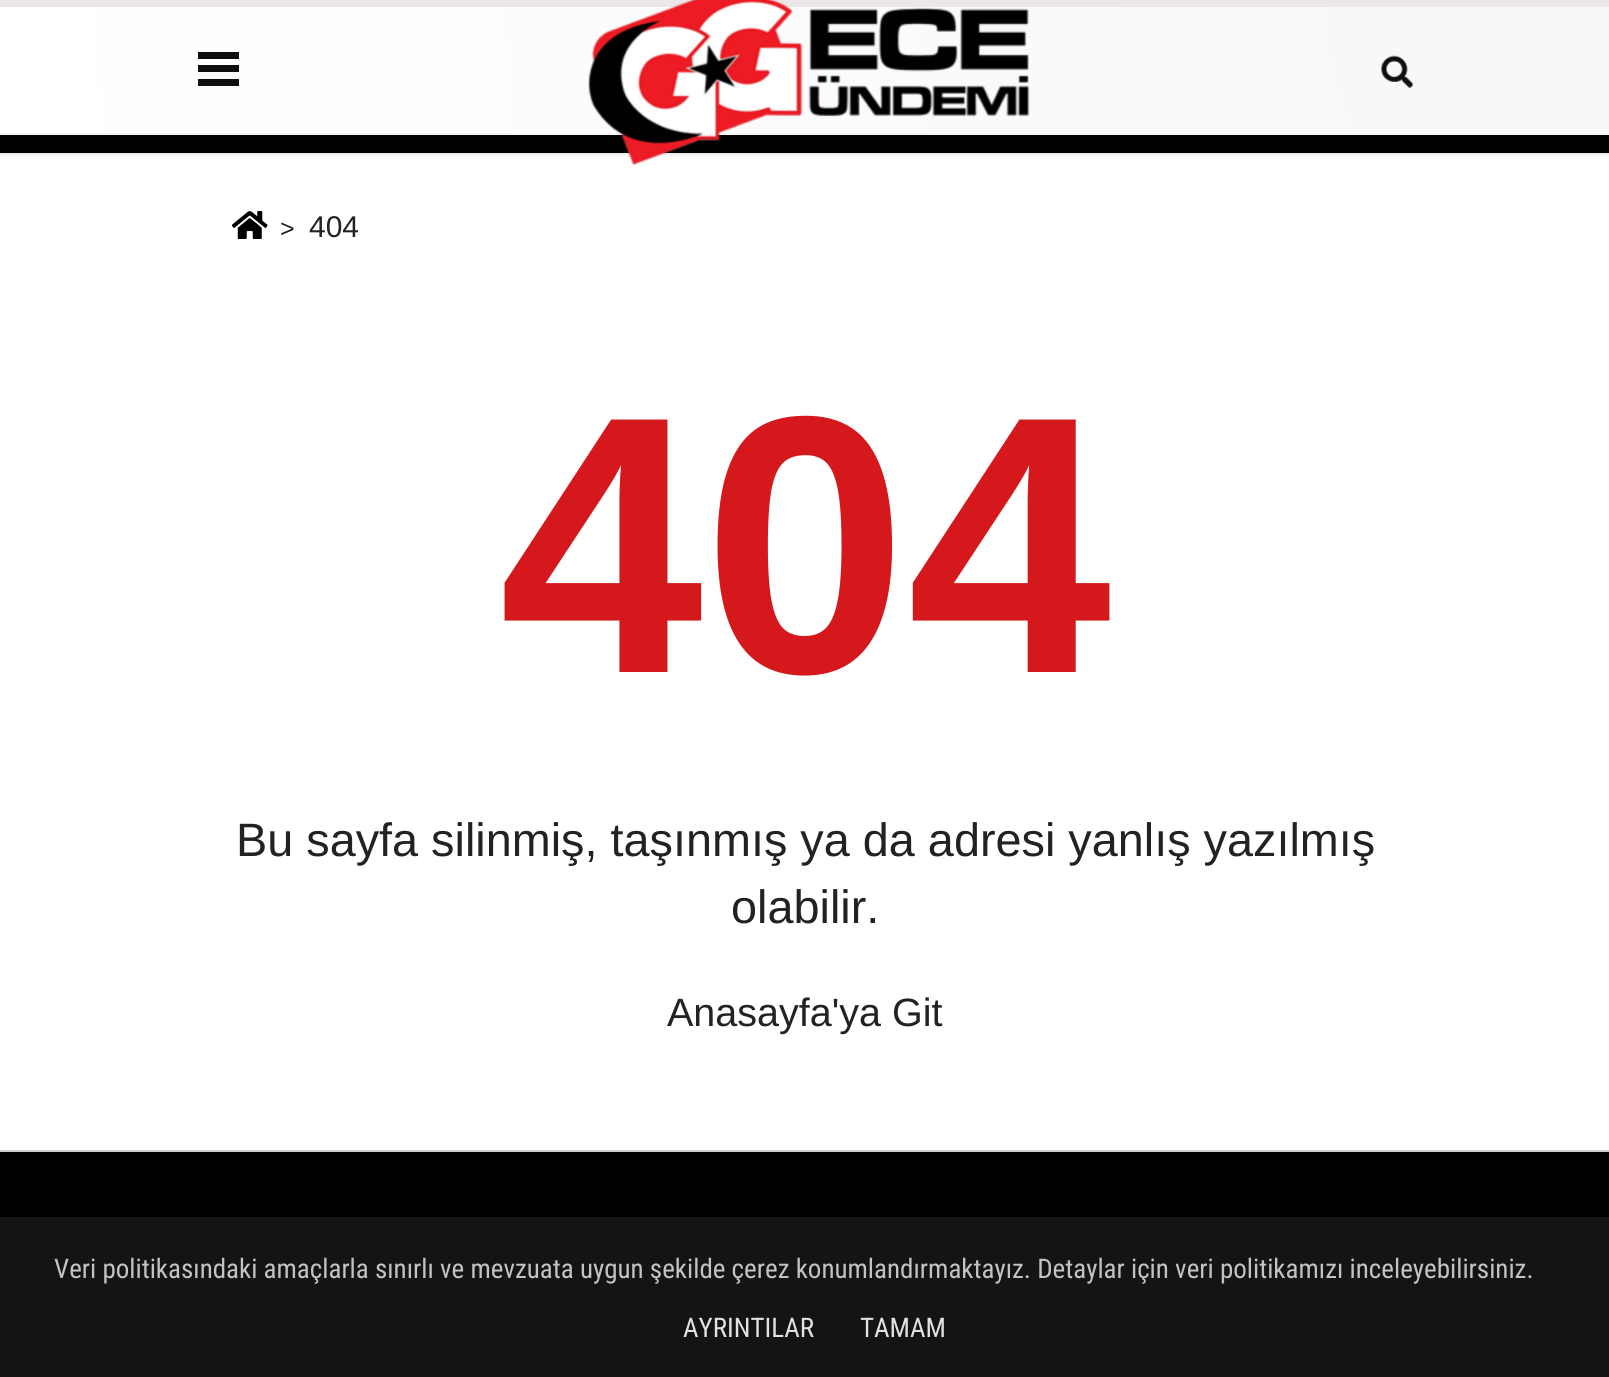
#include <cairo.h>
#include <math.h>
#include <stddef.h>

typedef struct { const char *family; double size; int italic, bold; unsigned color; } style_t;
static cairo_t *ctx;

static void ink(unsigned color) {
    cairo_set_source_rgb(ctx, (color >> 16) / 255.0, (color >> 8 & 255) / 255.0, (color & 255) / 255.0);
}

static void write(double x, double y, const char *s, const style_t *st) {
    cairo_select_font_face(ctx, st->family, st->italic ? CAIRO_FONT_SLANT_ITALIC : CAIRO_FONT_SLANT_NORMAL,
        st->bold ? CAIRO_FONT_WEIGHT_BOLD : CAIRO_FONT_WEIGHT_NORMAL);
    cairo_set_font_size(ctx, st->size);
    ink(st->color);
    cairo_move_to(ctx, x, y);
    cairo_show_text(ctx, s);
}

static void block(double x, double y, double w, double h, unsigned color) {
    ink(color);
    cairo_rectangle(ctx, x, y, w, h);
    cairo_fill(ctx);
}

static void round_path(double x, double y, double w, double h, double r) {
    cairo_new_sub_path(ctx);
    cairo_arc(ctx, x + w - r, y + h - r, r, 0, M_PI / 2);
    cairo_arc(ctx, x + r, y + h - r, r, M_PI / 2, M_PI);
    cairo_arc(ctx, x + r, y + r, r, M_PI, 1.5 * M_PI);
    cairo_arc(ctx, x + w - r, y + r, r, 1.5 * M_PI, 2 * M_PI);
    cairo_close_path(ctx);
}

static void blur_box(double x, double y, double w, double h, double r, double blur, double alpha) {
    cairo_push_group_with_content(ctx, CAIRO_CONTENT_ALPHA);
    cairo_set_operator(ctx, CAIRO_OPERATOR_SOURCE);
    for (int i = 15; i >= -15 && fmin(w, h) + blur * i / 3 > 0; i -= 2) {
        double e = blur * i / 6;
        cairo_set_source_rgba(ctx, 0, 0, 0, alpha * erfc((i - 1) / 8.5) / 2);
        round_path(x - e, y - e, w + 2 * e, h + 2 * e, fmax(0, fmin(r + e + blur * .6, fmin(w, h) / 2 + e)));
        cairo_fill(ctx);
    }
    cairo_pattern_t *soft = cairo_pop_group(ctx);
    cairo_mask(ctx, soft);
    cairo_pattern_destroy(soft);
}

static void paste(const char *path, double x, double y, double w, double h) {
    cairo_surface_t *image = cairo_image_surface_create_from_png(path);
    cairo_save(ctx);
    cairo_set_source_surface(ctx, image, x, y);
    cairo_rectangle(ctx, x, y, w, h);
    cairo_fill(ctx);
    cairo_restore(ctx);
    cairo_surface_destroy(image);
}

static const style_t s1 = {"Liberation Sans", 25, 0, 0, 0x222222};
static const style_t s2 = {"Liberation Sans", 30, 0, 0, 0x222222};
static const style_t s3 = {"Liberation Sans", 367, 0, 1, 0xd4181c};
static const style_t s4 = {"Liberation Sans", 46.8, 0, 0, 0x222222};
static const style_t s5 = {"Liberation Sans", 39.5, 0, 0, 0x222222};
static const style_t s6 = {"Roboto Condensed", 27, 0, 0, 0xc3c3c3};
static const style_t s7 = {"Roboto Condensed", 27, 0, 0, 0xe2e2e2};

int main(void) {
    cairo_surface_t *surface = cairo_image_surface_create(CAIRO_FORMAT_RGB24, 1609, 1377);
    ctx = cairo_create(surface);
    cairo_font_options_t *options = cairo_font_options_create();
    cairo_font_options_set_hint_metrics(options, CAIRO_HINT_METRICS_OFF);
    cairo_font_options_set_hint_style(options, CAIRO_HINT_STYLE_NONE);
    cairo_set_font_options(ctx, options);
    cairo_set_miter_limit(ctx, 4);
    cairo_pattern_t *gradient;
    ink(0xffffff);
    cairo_paint(ctx);
    ink(0x000000);
    blur_box(0, 41, 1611, 114, 0, 2, 0.1);
    gradient = cairo_pattern_create_radial(1611, 6.8, 0, 1611, 6.8, 1616);
    cairo_pattern_add_color_stop_rgba(gradient, 0, 0.969, 0.969, 0.969, 1);
    cairo_pattern_add_color_stop_rgba(gradient, 1, 1, 1, 1, 1);
    cairo_set_source(ctx, gradient);
    cairo_pattern_destroy(gradient);
    cairo_rectangle(ctx, 0, 7, 1609, 126);
    cairo_fill(ctx);
    block(0, 0, 1609, 7, 0xebe7e6);
    block(0, 133, 1609, 2, 0xf5f5f5);
    block(198, 52, 41, 7, 0x0f0f0f);
    block(198, 65, 41, 7, 0x0f0f0f);
    block(198, 79, 41, 7, 0x0f0f0f);
    block(0, 135, 1609, 18, 0x000000);
    paste("pic1.png", 587, 0, 443, 166);
    paste("pic2.png", 1381, 55, 33, 33);
    paste("pic3.png", 232, 211, 36, 28);
    write(280, 237, ">", &s1);
    write(309, 237, "404", &s2);
    write(499, 672, "404", &s3);
    write(236, 856, "Bu sayfa silinmiş, taşınmış ya da adresi yanlış yazılmış", &s4);
    write(731, 923, "olabilir.", &s4);
    write(667, 1026, "Anasayfa'ya Git", &s5);
    block(0, 1152, 1609, 65, 0x000000);
    block(0, 1217, 1609, 160, 0x161313);
    block(0, 1150, 1609, 2, 0xcccccc);
    write(54, 1278, "Veri politikasındaki amaçlarla sınırlı ve mevzuata uygun şekilde çerez konumlandırmaktayız. Detaylar için veri politikamızı inceleyebilirsiniz.", &s6);
    write(683, 1337, "AYRINTILAR", &s7);
    write(860, 1337, "TAMAM", &s7);
    cairo_surface_write_to_png(surface, "screenshot.png");
    cairo_font_options_destroy(options);
    cairo_destroy(ctx);
    cairo_surface_destroy(surface);
    return 0;
}
